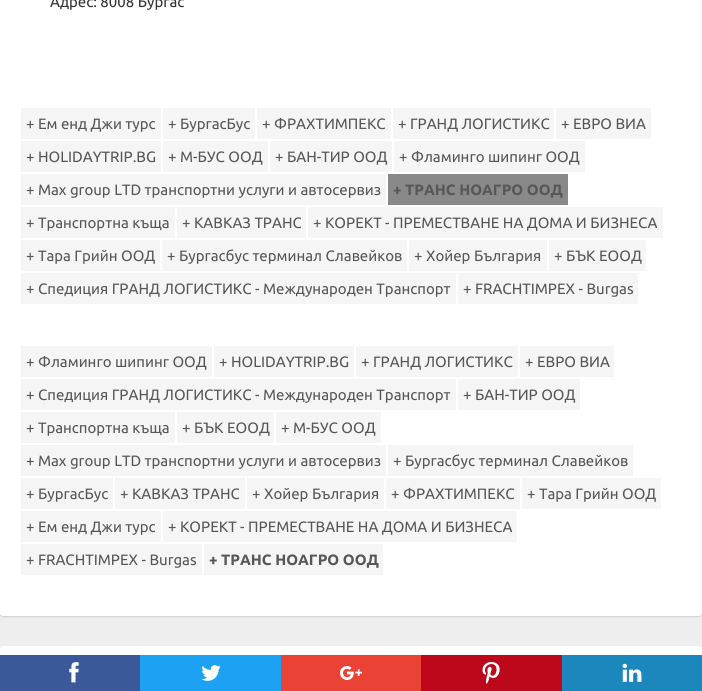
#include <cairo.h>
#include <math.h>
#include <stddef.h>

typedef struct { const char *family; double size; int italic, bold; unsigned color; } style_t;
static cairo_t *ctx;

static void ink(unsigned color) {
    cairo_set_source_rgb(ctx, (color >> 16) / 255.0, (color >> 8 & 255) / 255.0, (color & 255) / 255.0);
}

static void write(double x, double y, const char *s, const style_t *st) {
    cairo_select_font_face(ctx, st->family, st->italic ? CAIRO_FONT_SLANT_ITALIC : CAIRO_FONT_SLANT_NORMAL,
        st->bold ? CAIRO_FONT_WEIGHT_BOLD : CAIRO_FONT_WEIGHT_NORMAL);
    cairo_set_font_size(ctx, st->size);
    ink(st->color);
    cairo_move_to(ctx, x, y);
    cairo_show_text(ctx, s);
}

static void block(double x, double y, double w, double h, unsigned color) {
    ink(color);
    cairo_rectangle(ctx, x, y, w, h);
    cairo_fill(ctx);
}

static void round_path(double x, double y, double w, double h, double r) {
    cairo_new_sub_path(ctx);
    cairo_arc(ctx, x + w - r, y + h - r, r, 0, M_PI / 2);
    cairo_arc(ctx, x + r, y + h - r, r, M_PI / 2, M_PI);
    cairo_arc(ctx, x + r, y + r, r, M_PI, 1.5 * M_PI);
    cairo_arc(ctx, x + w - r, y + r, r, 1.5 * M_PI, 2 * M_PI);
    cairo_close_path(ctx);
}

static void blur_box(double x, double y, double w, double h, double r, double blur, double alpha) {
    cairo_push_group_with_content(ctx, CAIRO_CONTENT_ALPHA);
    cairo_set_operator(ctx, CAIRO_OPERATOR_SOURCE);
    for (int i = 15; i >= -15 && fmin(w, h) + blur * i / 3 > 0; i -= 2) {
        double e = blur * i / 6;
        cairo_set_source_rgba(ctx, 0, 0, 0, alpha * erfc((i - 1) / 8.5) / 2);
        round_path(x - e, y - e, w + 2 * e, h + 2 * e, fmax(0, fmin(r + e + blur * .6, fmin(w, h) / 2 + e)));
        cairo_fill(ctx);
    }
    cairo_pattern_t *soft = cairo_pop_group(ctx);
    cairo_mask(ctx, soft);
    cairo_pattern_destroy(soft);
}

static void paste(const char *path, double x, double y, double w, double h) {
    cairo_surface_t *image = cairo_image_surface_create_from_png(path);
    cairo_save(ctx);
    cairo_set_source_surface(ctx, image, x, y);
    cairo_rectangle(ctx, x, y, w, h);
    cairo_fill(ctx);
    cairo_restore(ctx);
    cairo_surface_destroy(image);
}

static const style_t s1 = {"Ubuntu", 15, 0, 0, 0x333333};
static const style_t s2 = {"Ubuntu", 15, 0, 0, 0x575757};
static const style_t s3 = {"Ubuntu", 15, 0, 1, 0x575757};

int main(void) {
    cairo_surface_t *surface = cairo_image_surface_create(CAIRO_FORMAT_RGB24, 702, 691);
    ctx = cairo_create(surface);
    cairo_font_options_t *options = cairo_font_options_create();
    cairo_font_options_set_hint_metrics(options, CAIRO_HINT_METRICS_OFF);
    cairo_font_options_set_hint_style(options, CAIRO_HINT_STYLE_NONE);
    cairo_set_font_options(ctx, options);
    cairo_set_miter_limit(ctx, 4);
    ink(0xeeeeee);
    cairo_paint(ctx);
    ink(0xb4b4b4);
    blur_box(0, -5, 702, 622, 3, 0.5, 0.5);
    ink(0xffffff);
    round_path(0, -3, 702, 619, 3);
    cairo_fill(ctx);
    write(50, 7, "Адрес: 8008 Бургас", &s1);
    block(21, 108, 140, 31, 0xf5f5f5);
    write(26, 129, "+ Ем енд Джи турс", &s2);
    block(163, 108, 92, 31, 0xf5f5f5);
    write(168, 129, "+ БургасБус", &s2);
    block(257, 108, 134, 31, 0xf5f5f5);
    write(262, 129, "+ ФРАХТИМПЕКС", &s2);
    block(393, 108, 161, 31, 0xf5f5f5);
    write(398, 129, "+ ГРАНД ЛОГИСТИКС", &s2);
    block(556, 108, 95, 31, 0xf5f5f5);
    write(561, 129, "+ ЕВРО ВИА", &s2);
    block(21, 141, 140, 31, 0xf5f5f5);
    write(26, 162, "+ HOLIDAYTRIP.BG", &s2);
    block(163, 141, 105, 31, 0xf5f5f5);
    write(168, 162, "+ M-БУС ООД", &s2);
    block(270, 141, 122, 31, 0xf5f5f5);
    write(275, 162, "+ БАН-ТИР ООД", &s2);
    block(394, 141, 191, 31, 0xf5f5f5);
    write(399, 162, "+ Фламинго шипинг ООД", &s2);
    block(21, 174, 365, 31, 0xf5f5f5);
    write(26, 195, "+ Max group LTD транспортни услуги и автосервиз", &s2);
    block(388, 174, 180, 31, 0x898989);
    write(393, 195, "+ ТРАНС НОАГРО ООД", &s3);
    block(21, 207, 154, 31, 0xf5f5f5);
    write(26, 228, "+ Транспортна къща", &s2);
    block(177, 207, 129, 31, 0xf5f5f5);
    write(182, 228, "+ КАВКАЗ ТРАНС", &s2);
    block(308, 207, 355, 31, 0xf5f5f5);
    write(313, 228, "+ КОРЕКТ - ПРЕМЕСТВАНЕ НА ДОМА И БИЗНЕСА", &s2);
    block(21, 240, 139, 31, 0xf5f5f5);
    write(26, 261, "+ Тара Грийн ООД", &s2);
    block(162, 240, 245, 31, 0xf5f5f5);
    write(167, 261, "+ Бургасбус терминал Славейков", &s2);
    block(409, 240, 138, 31, 0xf5f5f5);
    write(414, 261, "+ Хойер България", &s2);
    block(549, 240, 97, 31, 0xf5f5f5);
    write(554, 261, "+ БЪК ЕООД", &s2);
    block(21, 273, 435, 31, 0xf5f5f5);
    write(26, 294, "+ Спедиция ГРАНД ЛОГИСТИКС - Международен Транспорт", &s2);
    block(458, 273, 180, 31, 0xf5f5f5);
    write(463, 294, "+ FRACHTIMPEX - Burgas", &s2);
    block(21, 346, 191, 31, 0xf5f5f5);
    write(26, 367, "+ Фламинго шипинг ООД", &s2);
    block(214, 346, 140, 31, 0xf5f5f5);
    write(219, 367, "+ HOLIDAYTRIP.BG", &s2);
    block(356, 346, 162, 31, 0xf5f5f5);
    write(361, 367, "+ ГРАНД ЛОГИСТИКС", &s2);
    block(520, 346, 94, 31, 0xf5f5f5);
    write(525, 367, "+ ЕВРО ВИА", &s2);
    block(21, 379, 435, 31, 0xf5f5f5);
    write(26, 400, "+ Спедиция ГРАНД ЛОГИСТИКС - Международен Транспорт", &s2);
    block(458, 379, 122, 31, 0xf5f5f5);
    write(463, 400, "+ БАН-ТИР ООД", &s2);
    block(21, 412, 154, 31, 0xf5f5f5);
    write(26, 433, "+ Транспортна къща", &s2);
    block(177, 412, 97, 31, 0xf5f5f5);
    write(182, 433, "+ БЪК ЕООД", &s2);
    block(276, 412, 105, 31, 0xf5f5f5);
    write(281, 433, "+ M-БУС ООД", &s2);
    block(21, 445, 365, 31, 0xf5f5f5);
    write(26, 466, "+ Max group LTD транспортни услуги и автосервиз", &s2);
    block(388, 445, 245, 31, 0xf5f5f5);
    write(393, 466, "+ Бургасбус терминал Славейков", &s2);
    block(21, 478, 92, 31, 0xf5f5f5);
    write(26, 499, "+ БургасБус", &s2);
    block(115, 478, 130, 31, 0xf5f5f5);
    write(120, 499, "+ КАВКАЗ ТРАНС", &s2);
    block(247, 478, 137, 31, 0xf5f5f5);
    write(252, 499, "+ Хойер България", &s2);
    block(386, 478, 134, 31, 0xf5f5f5);
    write(391, 499, "+ ФРАХТИМПЕКС", &s2);
    block(522, 478, 139, 31, 0xf5f5f5);
    write(527, 499, "+ Тара Грийн ООД", &s2);
    block(21, 511, 140, 31, 0xf5f5f5);
    write(26, 532, "+ Ем енд Джи турс", &s2);
    block(163, 511, 354, 31, 0xf5f5f5);
    write(168, 532, "+ КОРЕКТ - ПРЕМЕСТВАНЕ НА ДОМА И БИЗНЕСА", &s2);
    block(21, 544, 181, 31, 0xf5f5f5);
    write(26, 565, "+ FRACHTIMPEX - Burgas", &s2);
    block(204, 544, 179, 31, 0xf5f5f5);
    write(209, 565, "+ ТРАНС НОАГРО ООД", &s3);
    ink(0xffffff);
    round_path(0, 646, 702, 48, 3);
    cairo_fill(ctx);
    block(0, 655, 140, 36, 0x3b5998);
    paste("pic1.png", 69, 662, 10, 21);
    block(140, 655, 141, 36, 0x1da1f2);
    paste("pic2.png", 201, 665, 20, 16);
    block(281, 655, 140, 36, 0xea4335);
    paste("pic3.png", 340, 666, 22, 14);
    block(421, 655, 141, 36, 0xbd081c);
    paste("pic4.png", 482, 662, 18, 22);
    block(562, 655, 140, 36, 0x1c87bd);
    paste("pic5.png", 622, 663, 20, 19);
    cairo_surface_write_to_png(surface, "screenshot.png");
    cairo_font_options_destroy(options);
    cairo_destroy(ctx);
    cairo_surface_destroy(surface);
    return 0;
}
